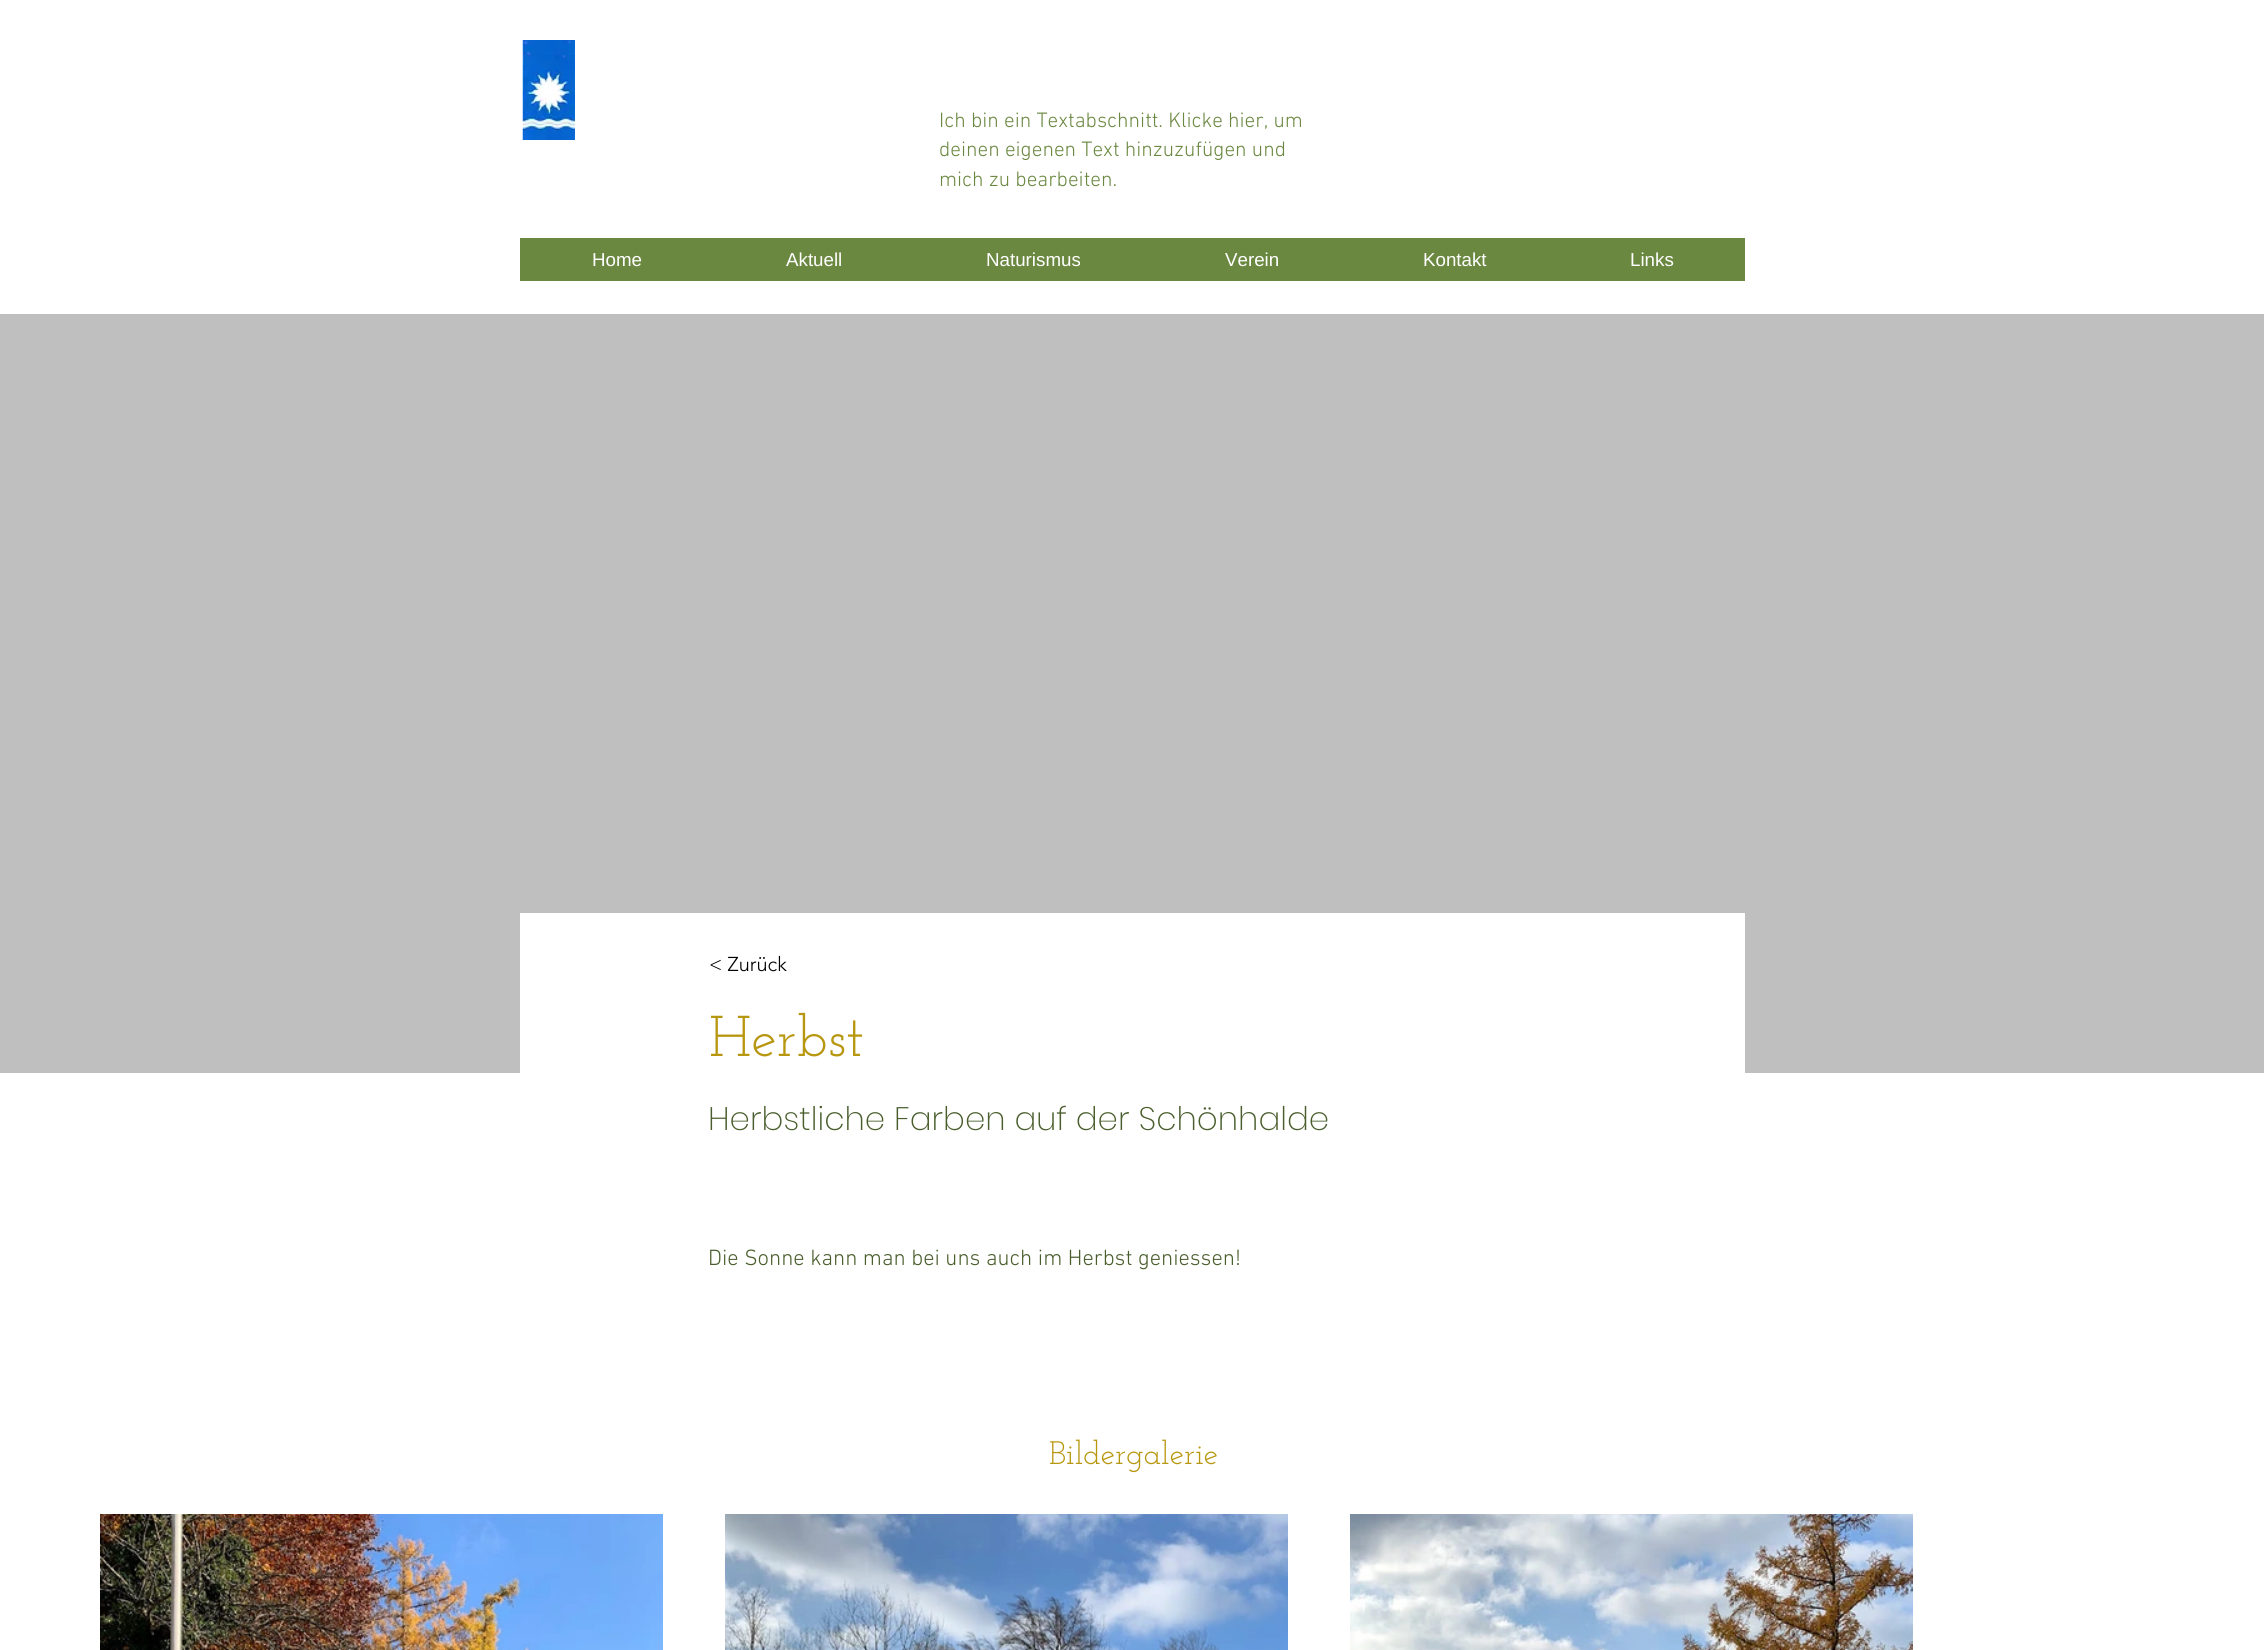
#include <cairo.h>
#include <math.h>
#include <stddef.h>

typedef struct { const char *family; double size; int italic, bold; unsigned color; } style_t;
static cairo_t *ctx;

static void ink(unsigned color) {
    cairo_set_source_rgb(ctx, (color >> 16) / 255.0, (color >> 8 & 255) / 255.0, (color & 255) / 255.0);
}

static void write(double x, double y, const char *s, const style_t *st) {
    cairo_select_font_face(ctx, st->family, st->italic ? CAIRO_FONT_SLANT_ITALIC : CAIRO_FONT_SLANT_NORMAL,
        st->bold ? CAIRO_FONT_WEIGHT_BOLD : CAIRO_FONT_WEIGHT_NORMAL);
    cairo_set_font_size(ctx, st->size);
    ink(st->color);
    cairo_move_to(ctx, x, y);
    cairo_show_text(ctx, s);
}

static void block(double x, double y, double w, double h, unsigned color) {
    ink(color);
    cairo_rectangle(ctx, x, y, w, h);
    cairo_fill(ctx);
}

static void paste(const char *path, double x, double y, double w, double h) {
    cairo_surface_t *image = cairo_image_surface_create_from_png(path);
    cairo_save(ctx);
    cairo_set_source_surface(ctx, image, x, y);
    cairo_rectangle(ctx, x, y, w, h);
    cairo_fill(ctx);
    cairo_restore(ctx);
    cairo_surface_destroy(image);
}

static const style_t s1 = {"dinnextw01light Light", 21.25, 0, 0, 0x6b8841};
static const style_t s2 = {"Liberation Sans", 18.75, 0, 0, 0xffffff};
static const style_t s3 = {"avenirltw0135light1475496 Light", 20, 0, 0, 0x000000};
static const style_t s4 = {"Josefin Slab", 57.5, 0, 0, 0xb89710};
static const style_t s5 = {"Poppins ExtraLight", 32.5, 0, 0, 0x4a5e2d};
static const style_t s6 = {"dinnextw01light Light", 22.5, 0, 0, 0x4a5e2d};
static const style_t s7 = {"Josefin Slab", 32.5, 0, 0, 0xb89710};

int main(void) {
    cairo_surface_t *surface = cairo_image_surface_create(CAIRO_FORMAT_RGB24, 2264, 1650);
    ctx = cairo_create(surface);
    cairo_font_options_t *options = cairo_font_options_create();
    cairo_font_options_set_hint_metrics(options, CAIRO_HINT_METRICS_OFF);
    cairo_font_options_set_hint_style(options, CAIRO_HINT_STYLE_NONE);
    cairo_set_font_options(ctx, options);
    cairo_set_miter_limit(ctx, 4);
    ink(0xffffff);
    cairo_paint(ctx);
    paste("pic1.png", 522, 40, 53, 100);
    write(939, 127, "Ich bin ein Textabschnitt. Klicke hier, um", &s1);
    write(939, 156, "deinen eigenen Text hinzuzufügen und", &s1);
    write(939, 186, "mich zu bearbeiten.", &s1);
    block(520, 238, 1225, 43, 0x6b8841);
    write(592, 266, "Home", &s2);
    write(786, 266, "Aktuell", &s2);
    write(986, 266, "Naturismus", &s2);
    write(1225, 266, "Verein", &s2);
    write(1423, 266, "Kontakt", &s2);
    write(1630, 266, "Links", &s2);
    block(0, 314, 2264, 759, 0xbfbfbf);
    block(520, 913, 1225, 160, 0xffffff);
    write(709, 971, "< Zurück", &s3);
    write(709, 1056, "Herbst", &s4);
    write(708, 1130, "Herbstliche Farben auf der Schönhalde", &s5);
    write(708, 1265, "Die Sonne kann man bei uns auch im Herbst geniessen!", &s6);
    write(1049, 1464, "Bildergalerie", &s7);
    paste("pic2.png", 100, 1514, 563, 136);
    paste("pic3.png", 725, 1514, 563, 136);
    paste("pic4.png", 1350, 1514, 563, 136);
    cairo_surface_write_to_png(surface, "screenshot.png");
    cairo_font_options_destroy(options);
    cairo_destroy(ctx);
    cairo_surface_destroy(surface);
    return 0;
}
